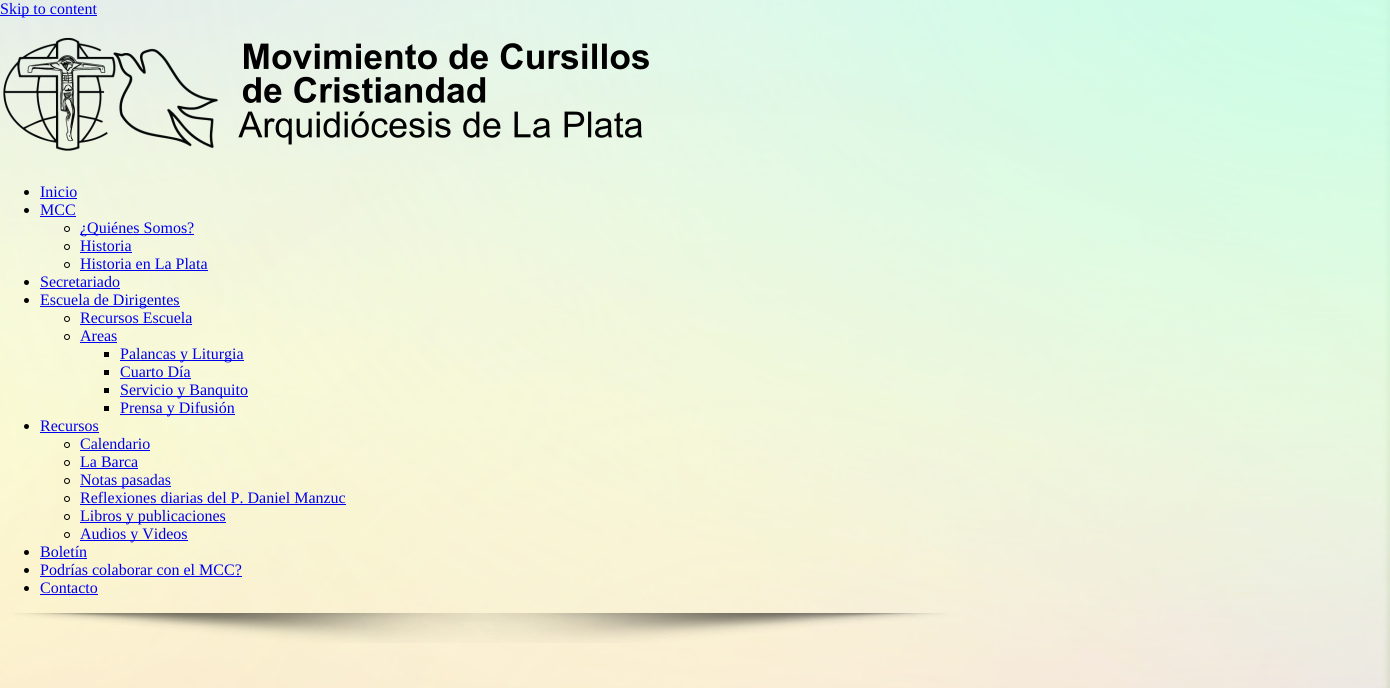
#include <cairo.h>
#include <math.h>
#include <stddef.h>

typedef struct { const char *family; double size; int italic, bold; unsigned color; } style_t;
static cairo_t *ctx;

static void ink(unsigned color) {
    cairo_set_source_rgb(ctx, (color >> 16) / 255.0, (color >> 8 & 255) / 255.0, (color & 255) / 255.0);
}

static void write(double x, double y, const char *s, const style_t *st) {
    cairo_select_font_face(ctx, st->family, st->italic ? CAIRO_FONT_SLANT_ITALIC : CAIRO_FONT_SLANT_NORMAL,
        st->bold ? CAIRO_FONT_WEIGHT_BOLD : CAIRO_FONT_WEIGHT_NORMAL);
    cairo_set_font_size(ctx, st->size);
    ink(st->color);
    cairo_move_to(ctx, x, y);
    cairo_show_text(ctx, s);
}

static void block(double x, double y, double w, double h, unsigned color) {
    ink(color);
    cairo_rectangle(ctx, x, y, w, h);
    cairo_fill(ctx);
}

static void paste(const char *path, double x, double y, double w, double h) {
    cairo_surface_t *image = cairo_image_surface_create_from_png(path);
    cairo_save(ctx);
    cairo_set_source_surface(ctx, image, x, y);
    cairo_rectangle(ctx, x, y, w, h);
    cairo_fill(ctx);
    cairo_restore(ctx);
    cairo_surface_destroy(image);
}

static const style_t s1 = {"Liberation Serif", 16, 0, 0, 0x0000ee};

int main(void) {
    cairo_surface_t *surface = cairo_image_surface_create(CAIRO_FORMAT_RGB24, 1390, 688);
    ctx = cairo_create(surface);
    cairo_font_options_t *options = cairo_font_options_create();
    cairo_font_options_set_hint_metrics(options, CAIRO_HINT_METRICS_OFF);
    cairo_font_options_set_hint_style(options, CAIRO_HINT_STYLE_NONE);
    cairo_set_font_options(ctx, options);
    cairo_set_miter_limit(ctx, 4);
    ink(0xffffff);
    cairo_paint(ctx);
    paste("pic1.png", 0, 0, 1390, 688);
    block(0, 15, 97, 1, 0x0000ee);
    write(0, 14, "Skip to content", &s1);
    paste("pic2.png", 3, 37, 646, 114);
    ink(0x000000);
    cairo_arc(ctx, 26.5, 192.5, 2.5, 0, 2 * M_PI);
    cairo_fill(ctx);
    write(40, 197, "Inicio", &s1);
    block(40, 198, 37, 1, 0x0000ee);
    ink(0x000000);
    cairo_new_path(ctx);
    cairo_arc(ctx, 26.5, 210.5, 2.5, 0, 2 * M_PI);
    cairo_fill(ctx);
    write(40, 215, "MCC", &s1);
    block(40, 216, 36, 1, 0x0000ee);
    cairo_new_path(ctx);
    cairo_arc(ctx, 67, 229, 2.5, 0, 2 * M_PI);
    ink(0x000000);
    cairo_set_line_width(ctx, 1);
    cairo_stroke(ctx);
    block(80, 234, 114, 1, 0x0000ee);
    write(80, 233, "¿Quiénes Somos?", &s1);
    cairo_new_path(ctx);
    cairo_arc(ctx, 67, 247, 2.5, 0, 2 * M_PI);
    ink(0x000000);
    cairo_stroke(ctx);
    write(80, 251, "Historia", &s1);
    block(80, 252, 52, 1, 0x0000ee);
    cairo_new_path(ctx);
    cairo_arc(ctx, 67, 265, 2.5, 0, 2 * M_PI);
    ink(0x000000);
    cairo_stroke(ctx);
    write(80, 269, "Historia en La Plata", &s1);
    block(80, 270, 128, 1, 0x0000ee);
    ink(0x000000);
    cairo_new_path(ctx);
    cairo_arc(ctx, 26.5, 282.5, 2.5, 0, 2 * M_PI);
    cairo_fill(ctx);
    write(40, 287, "Secretariado", &s1);
    block(40, 288, 80, 1, 0x0000ee);
    ink(0x000000);
    cairo_new_path(ctx);
    cairo_arc(ctx, 26.5, 300.5, 2.5, 0, 2 * M_PI);
    cairo_fill(ctx);
    block(40, 306, 140, 1, 0x0000ee);
    write(40, 305, "Escuela de Dirigentes", &s1);
    cairo_new_path(ctx);
    cairo_arc(ctx, 67, 319, 2.5, 0, 2 * M_PI);
    ink(0x000000);
    cairo_stroke(ctx);
    write(80, 323, "Recursos Escuela", &s1);
    block(80, 324, 112, 1, 0x0000ee);
    cairo_new_path(ctx);
    cairo_arc(ctx, 67, 337, 2.5, 0, 2 * M_PI);
    ink(0x000000);
    cairo_stroke(ctx);
    write(80, 341, "Areas", &s1);
    block(80, 342, 37, 1, 0x0000ee);
    block(104, 352, 5, 5, 0x000000);
    block(120, 360, 124, 1, 0x0000ee);
    write(120, 359, "Palancas y Liturgia", &s1);
    block(104, 370, 5, 5, 0x000000);
    write(120, 377, "Cuarto Día", &s1);
    block(120, 378, 71, 1, 0x0000ee);
    block(104, 388, 5, 5, 0x000000);
    block(120, 396, 128, 1, 0x0000ee);
    write(120, 395, "Servicio y Banquito", &s1);
    block(104, 406, 5, 5, 0x000000);
    block(120, 414, 115, 1, 0x0000ee);
    write(120, 413, "Prensa y Difusión", &s1);
    ink(0x000000);
    cairo_new_path(ctx);
    cairo_arc(ctx, 26.5, 426.5, 2.5, 0, 2 * M_PI);
    cairo_fill(ctx);
    write(40, 431, "Recursos", &s1);
    block(40, 432, 59, 1, 0x0000ee);
    cairo_new_path(ctx);
    cairo_arc(ctx, 67, 445, 2.5, 0, 2 * M_PI);
    ink(0x000000);
    cairo_stroke(ctx);
    write(80, 449, "Calendario", &s1);
    block(80, 450, 70, 1, 0x0000ee);
    cairo_new_path(ctx);
    cairo_arc(ctx, 67, 463, 2.5, 0, 2 * M_PI);
    ink(0x000000);
    cairo_stroke(ctx);
    write(80, 467, "La Barca", &s1);
    block(80, 468, 58, 1, 0x0000ee);
    cairo_new_path(ctx);
    cairo_arc(ctx, 67, 481, 2.5, 0, 2 * M_PI);
    ink(0x000000);
    cairo_stroke(ctx);
    block(80, 486, 91, 1, 0x0000ee);
    write(80, 485, "Notas pasadas", &s1);
    cairo_new_path(ctx);
    cairo_arc(ctx, 67, 499, 2.5, 0, 2 * M_PI);
    ink(0x000000);
    cairo_stroke(ctx);
    write(80, 503, "Reflexiones diarias del P. Daniel Manzuc", &s1);
    block(80, 504, 266, 1, 0x0000ee);
    cairo_new_path(ctx);
    cairo_arc(ctx, 67, 517, 2.5, 0, 2 * M_PI);
    ink(0x000000);
    cairo_stroke(ctx);
    block(80, 522, 146, 1, 0x0000ee);
    write(80, 521, "Libros y publicaciones", &s1);
    cairo_new_path(ctx);
    cairo_arc(ctx, 67, 535, 2.5, 0, 2 * M_PI);
    ink(0x000000);
    cairo_stroke(ctx);
    block(80, 540, 108, 1, 0x0000ee);
    write(80, 539, "Audios y Videos", &s1);
    ink(0x000000);
    cairo_new_path(ctx);
    cairo_arc(ctx, 26.5, 552.5, 2.5, 0, 2 * M_PI);
    cairo_fill(ctx);
    write(40, 557, "Boletín", &s1);
    block(40, 558, 47, 1, 0x0000ee);
    ink(0x000000);
    cairo_new_path(ctx);
    cairo_arc(ctx, 26.5, 570.5, 2.5, 0, 2 * M_PI);
    cairo_fill(ctx);
    write(40, 575, "Podrías colaborar con el MCC?", &s1);
    block(40, 576, 202, 1, 0x0000ee);
    ink(0x000000);
    cairo_new_path(ctx);
    cairo_arc(ctx, 26.5, 588.5, 2.5, 0, 2 * M_PI);
    cairo_fill(ctx);
    write(40, 593, "Contacto", &s1);
    block(40, 594, 58, 1, 0x0000ee);
    paste("pic3.png", 13, 613, 933, 30);
    cairo_surface_write_to_png(surface, "screenshot.png");
    cairo_font_options_destroy(options);
    cairo_destroy(ctx);
    cairo_surface_destroy(surface);
    return 0;
}
